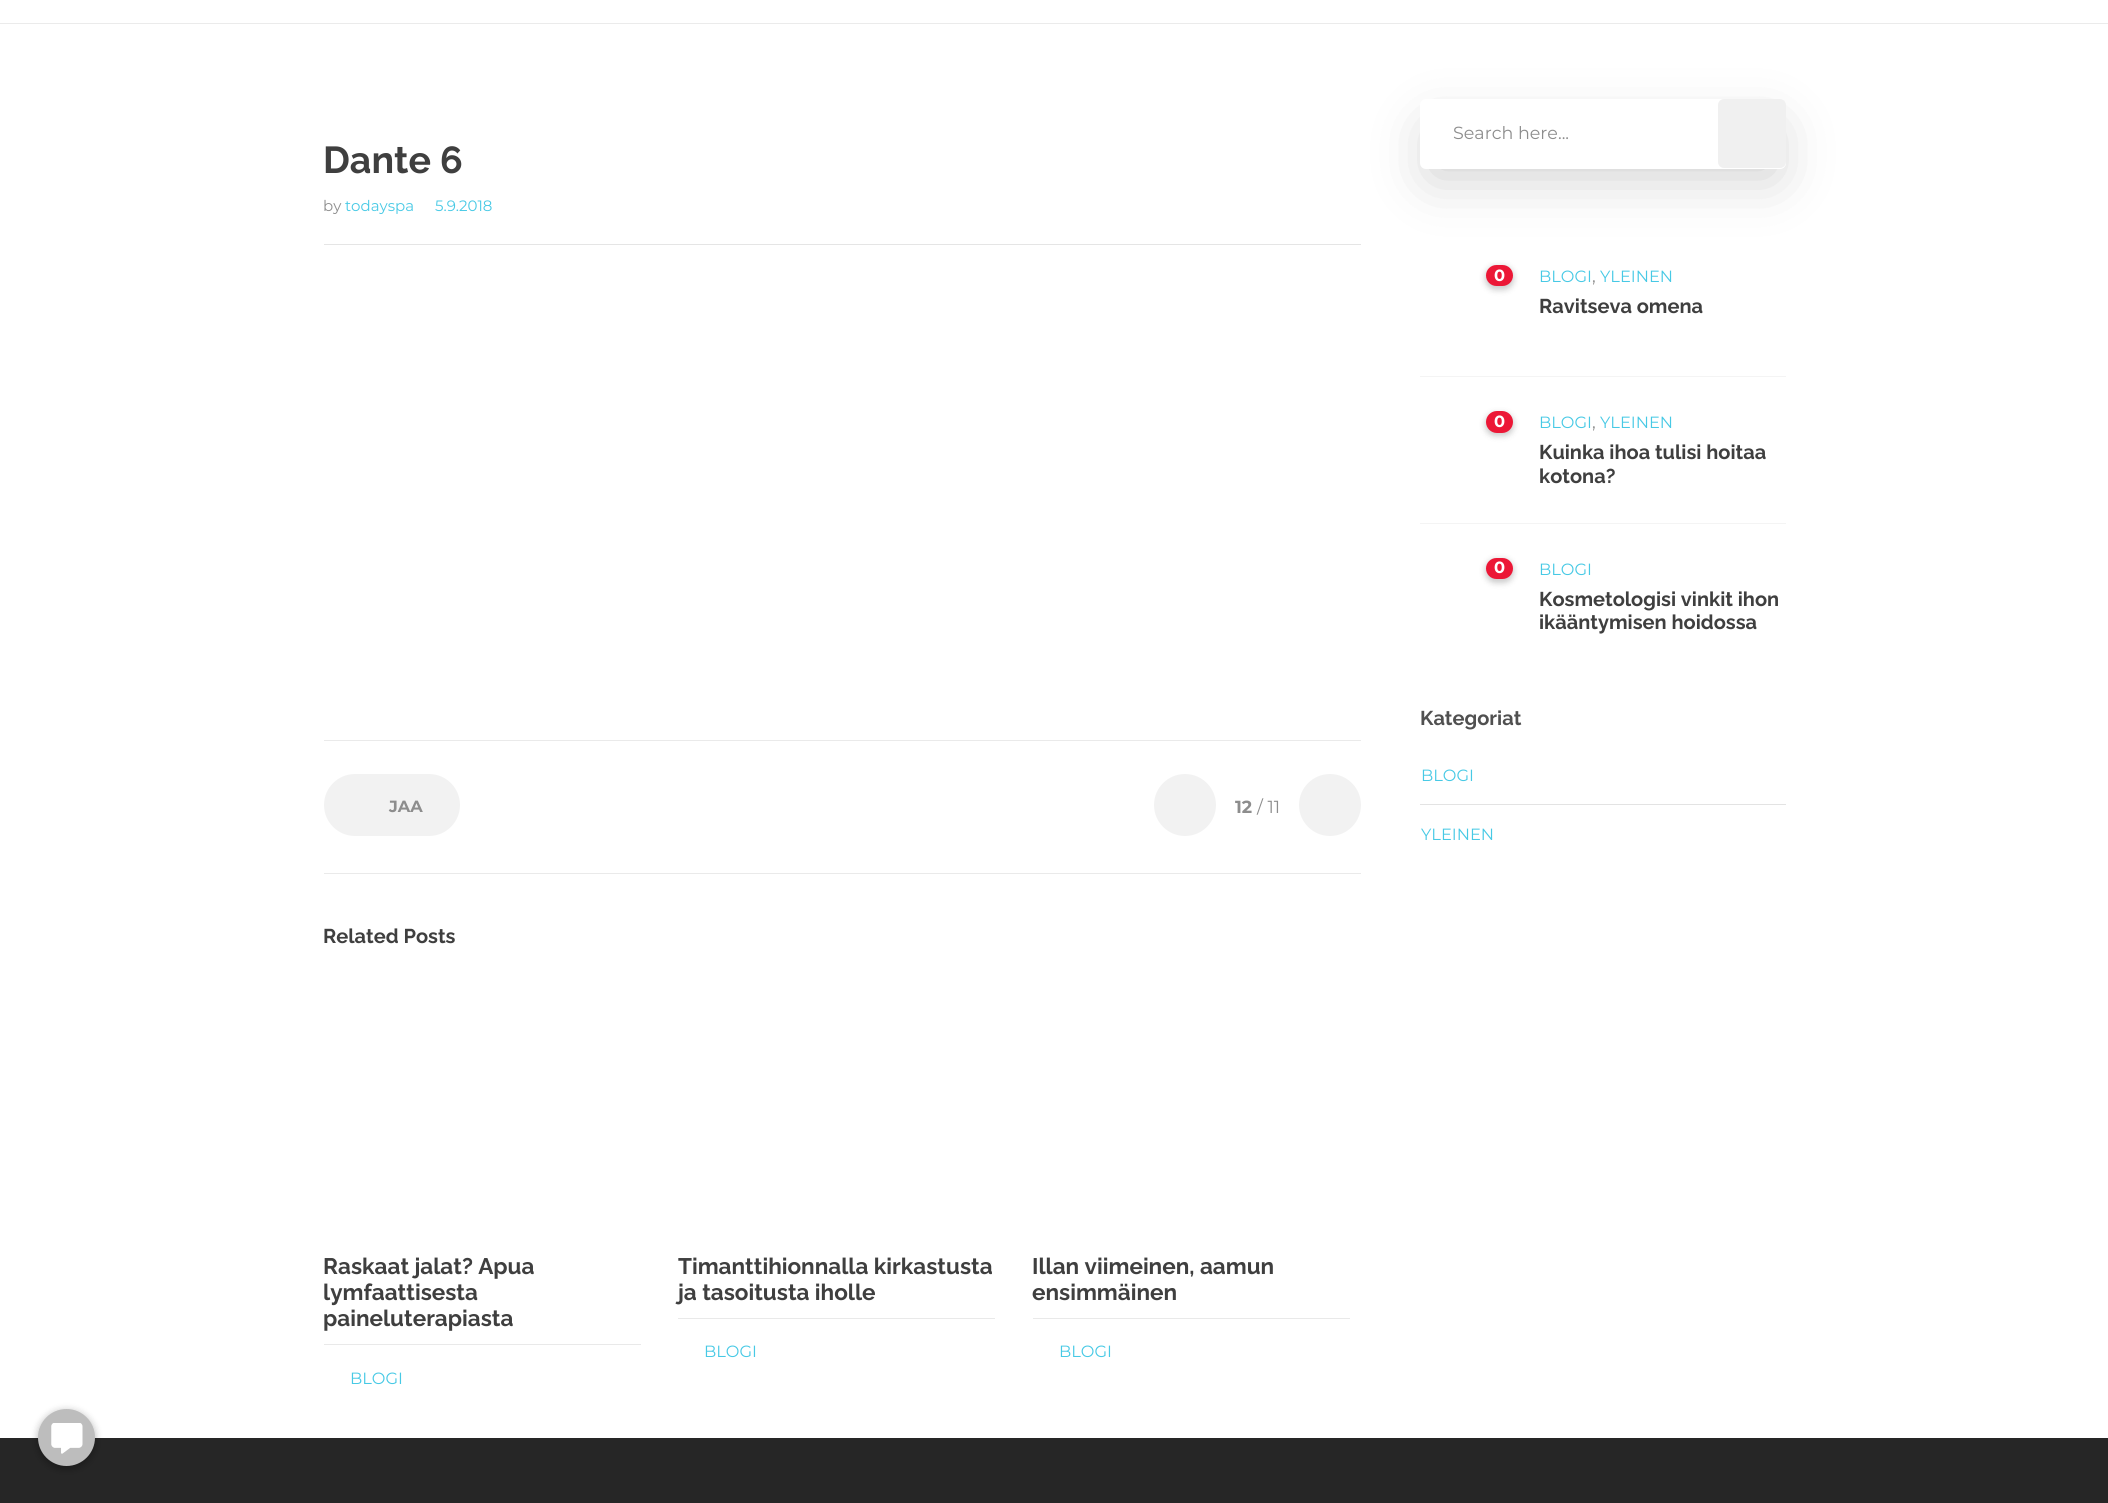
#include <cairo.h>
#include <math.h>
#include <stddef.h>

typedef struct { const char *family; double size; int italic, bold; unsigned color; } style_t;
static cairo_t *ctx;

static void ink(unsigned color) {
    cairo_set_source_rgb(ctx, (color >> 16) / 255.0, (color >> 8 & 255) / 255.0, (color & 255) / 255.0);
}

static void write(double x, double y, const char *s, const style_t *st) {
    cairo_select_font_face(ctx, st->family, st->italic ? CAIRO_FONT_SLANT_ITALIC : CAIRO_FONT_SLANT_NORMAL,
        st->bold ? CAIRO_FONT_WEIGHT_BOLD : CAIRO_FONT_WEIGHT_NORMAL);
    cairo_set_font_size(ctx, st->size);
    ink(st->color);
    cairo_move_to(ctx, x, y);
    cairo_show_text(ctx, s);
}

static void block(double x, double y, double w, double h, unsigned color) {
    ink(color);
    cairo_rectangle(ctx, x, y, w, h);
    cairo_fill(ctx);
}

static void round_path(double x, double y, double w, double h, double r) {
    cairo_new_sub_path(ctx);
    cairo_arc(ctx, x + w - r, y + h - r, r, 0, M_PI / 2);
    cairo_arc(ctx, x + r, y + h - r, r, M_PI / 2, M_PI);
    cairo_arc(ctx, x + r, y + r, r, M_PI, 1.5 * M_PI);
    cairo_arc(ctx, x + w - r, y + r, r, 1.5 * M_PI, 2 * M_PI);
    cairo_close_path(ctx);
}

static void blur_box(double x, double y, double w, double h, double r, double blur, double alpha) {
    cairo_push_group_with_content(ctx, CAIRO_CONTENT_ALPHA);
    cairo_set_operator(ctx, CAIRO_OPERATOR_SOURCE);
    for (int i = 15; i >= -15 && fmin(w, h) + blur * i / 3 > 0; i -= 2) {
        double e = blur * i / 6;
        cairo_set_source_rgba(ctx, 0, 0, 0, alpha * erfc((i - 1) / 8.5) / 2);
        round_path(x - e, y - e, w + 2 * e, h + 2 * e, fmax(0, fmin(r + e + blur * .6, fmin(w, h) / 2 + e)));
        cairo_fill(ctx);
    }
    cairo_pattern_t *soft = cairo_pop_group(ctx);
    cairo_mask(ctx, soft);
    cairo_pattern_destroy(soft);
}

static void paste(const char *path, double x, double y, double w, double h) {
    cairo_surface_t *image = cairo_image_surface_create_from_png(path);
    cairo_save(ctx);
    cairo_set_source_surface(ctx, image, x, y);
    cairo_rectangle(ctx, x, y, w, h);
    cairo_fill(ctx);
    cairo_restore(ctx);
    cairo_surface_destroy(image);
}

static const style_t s1 = {"Raleway", 37.5, 0, 1, 0x3f3f3f};
static const style_t s2 = {"Montserrat", 15, 0, 0, 0x8d8d8d};
static const style_t s3 = {"Montserrat", 15, 0, 0, 0x47c9e5};
static const style_t s4 = {"Montserrat", 16.25, 0, 1, 0x8d8d8d};
static const style_t s5 = {"Montserrat", 17.5, 0, 1, 0x8d8d8d};
static const style_t s6 = {"Montserrat", 17.5, 0, 0, 0x8d8d8d};
static const style_t s7 = {"Raleway", 20, 0, 1, 0x3f3f3f};
static const style_t s8 = {"Raleway", 22.5, 0, 1, 0x3f3f3f};
static const style_t s9 = {"Montserrat", 16.25, 0, 0, 0x47c9e5};
static const style_t s10 = {"Montserrat", 16.25, 0, 1, 0xffffff};
static const style_t s11 = {"Raleway", 20, 0, 1, 0x505050};

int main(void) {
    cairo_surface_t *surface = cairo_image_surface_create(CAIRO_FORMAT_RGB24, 2108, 1503);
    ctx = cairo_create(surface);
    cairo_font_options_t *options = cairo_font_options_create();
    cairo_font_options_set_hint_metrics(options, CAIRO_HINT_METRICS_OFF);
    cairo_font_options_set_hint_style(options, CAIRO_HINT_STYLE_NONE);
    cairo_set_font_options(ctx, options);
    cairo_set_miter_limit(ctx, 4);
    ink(0xffffff);
    cairo_paint(ctx);
    block(0, 23, 2108, 1, 0xebebeb);
    write(323, 173, "Dante 6", &s1);
    block(324, 244, 1037, 1, 0xe5e5e5);
    write(323, 211, "by", &s2);
    write(345, 211, "todayspa", &s3);
    write(435, 211, "5.9.2018", &s3);
    block(324, 740, 1037, 1, 0xeaeaea);
    block(324, 873, 1037, 1, 0xeaeaea);
    ink(0xf2f2f2);
    round_path(324, 774, 136, 62, 31);
    cairo_fill(ctx);
    write(389, 812, "JAA", &s4);
    ink(0xf2f2f2);
    cairo_new_path(ctx);
    cairo_arc(ctx, 1185, 805, 31, 0, 2 * M_PI);
    cairo_fill(ctx);
    write(1235, 813, "12", &s5);
    write(1257, 813, "/ 11", &s6);
    ink(0xf2f2f2);
    cairo_new_path(ctx);
    cairo_arc(ctx, 1330, 805, 31, 0, 2 * M_PI);
    cairo_fill(ctx);
    write(323, 943, "Related Posts", &s7);
    write(323, 1274, "Raskaat jalat? Apua", &s8);
    write(323, 1300, "lymfaattisesta", &s8);
    write(323, 1326, "paineluterapiasta", &s8);
    block(324, 1344, 317, 1, 0xe9e9e9);
    write(350, 1384, "BLOGI", &s9);
    write(678, 1274, "Timanttihionnalla kirkastusta", &s8);
    write(678, 1300, "ja tasoitusta iholle", &s8);
    block(678, 1318, 317, 1, 0xe9e9e9);
    write(704, 1357, "BLOGI", &s9);
    write(1032, 1274, "Illan viimeinen, aamun", &s8);
    write(1032, 1300, "ensimmäinen", &s8);
    block(1033, 1318, 317, 1, 0xe9e9e9);
    write(1059, 1357, "BLOGI", &s9);
    ink(0x000000);
    blur_box(1431, 129, 344, 47, 0, 28, 0.2);
    ink(0xffffff);
    round_path(1420, 99, 366, 70, 6);
    cairo_fill(ctx);
    write(1453, 139, "Search here...", &s6);
    ink(0xf0f0f0);
    round_path(1718, 99, 68, 69, 6);
    cairo_fill(ctx);
    block(1420, 376, 366, 1, 0xf4f4f4);
    ink(0x000000);
    blur_box(1485, 266, 29, 24, 12, 3, 0.2);
    ink(0xec1736);
    round_path(1486, 265, 27, 21, 10.5);
    cairo_fill(ctx);
    write(1494, 281, "0", &s10);
    write(1539, 282, "BLOGI", &s9);
    write(1600, 282, "YLEINEN", &s9);
    write(1592, 282, ",", &s6);
    write(1539, 313, "Ravitseva omena", &s7);
    block(1420, 523, 366, 1, 0xf4f4f4);
    ink(0x000000);
    blur_box(1485, 413, 29, 23, 11.5, 3, 0.2);
    ink(0xec1736);
    round_path(1486, 411, 27, 22, 11);
    cairo_fill(ctx);
    write(1494, 427, "0", &s10);
    write(1539, 428, "BLOGI", &s9);
    write(1600, 428, "YLEINEN", &s9);
    write(1592, 428, ",", &s6);
    write(1539, 459, "Kuinka ihoa tulisi hoitaa", &s7);
    write(1539, 483, "kotona?", &s7);
    ink(0x000000);
    blur_box(1485, 559, 29, 24, 12, 3, 0.2);
    ink(0xec1736);
    round_path(1486, 558, 27, 21, 10.5);
    cairo_fill(ctx);
    write(1494, 573, "0", &s10);
    write(1539, 575, "BLOGI", &s9);
    write(1539, 606, "Kosmetologisi vinkit ihon", &s7);
    write(1539, 629, "ikääntymisen hoidossa", &s7);
    write(1420, 725, "Kategoriat", &s11);
    block(1420, 804, 366, 1, 0xe3e3e3);
    write(1421, 781, "BLOGI", &s9);
    write(1421, 840, "YLEINEN", &s9);
    block(0, 1438, 2108, 65, 0x262626);
    ink(0x000000);
    blur_box(38, 1411, 57, 58, 28.5, 4, 0.3);
    ink(0xbdbdbd);
    cairo_arc(ctx, 66.5, 1437.5, 27, 0, 2 * M_PI);
    cairo_fill_preserve(ctx);
    cairo_set_line_width(ctx, 3);
    cairo_stroke(ctx);
    paste("pic1.png", 51, 1423, 32, 31);
    cairo_surface_write_to_png(surface, "screenshot.png");
    cairo_font_options_destroy(options);
    cairo_destroy(ctx);
    cairo_surface_destroy(surface);
    return 0;
}
